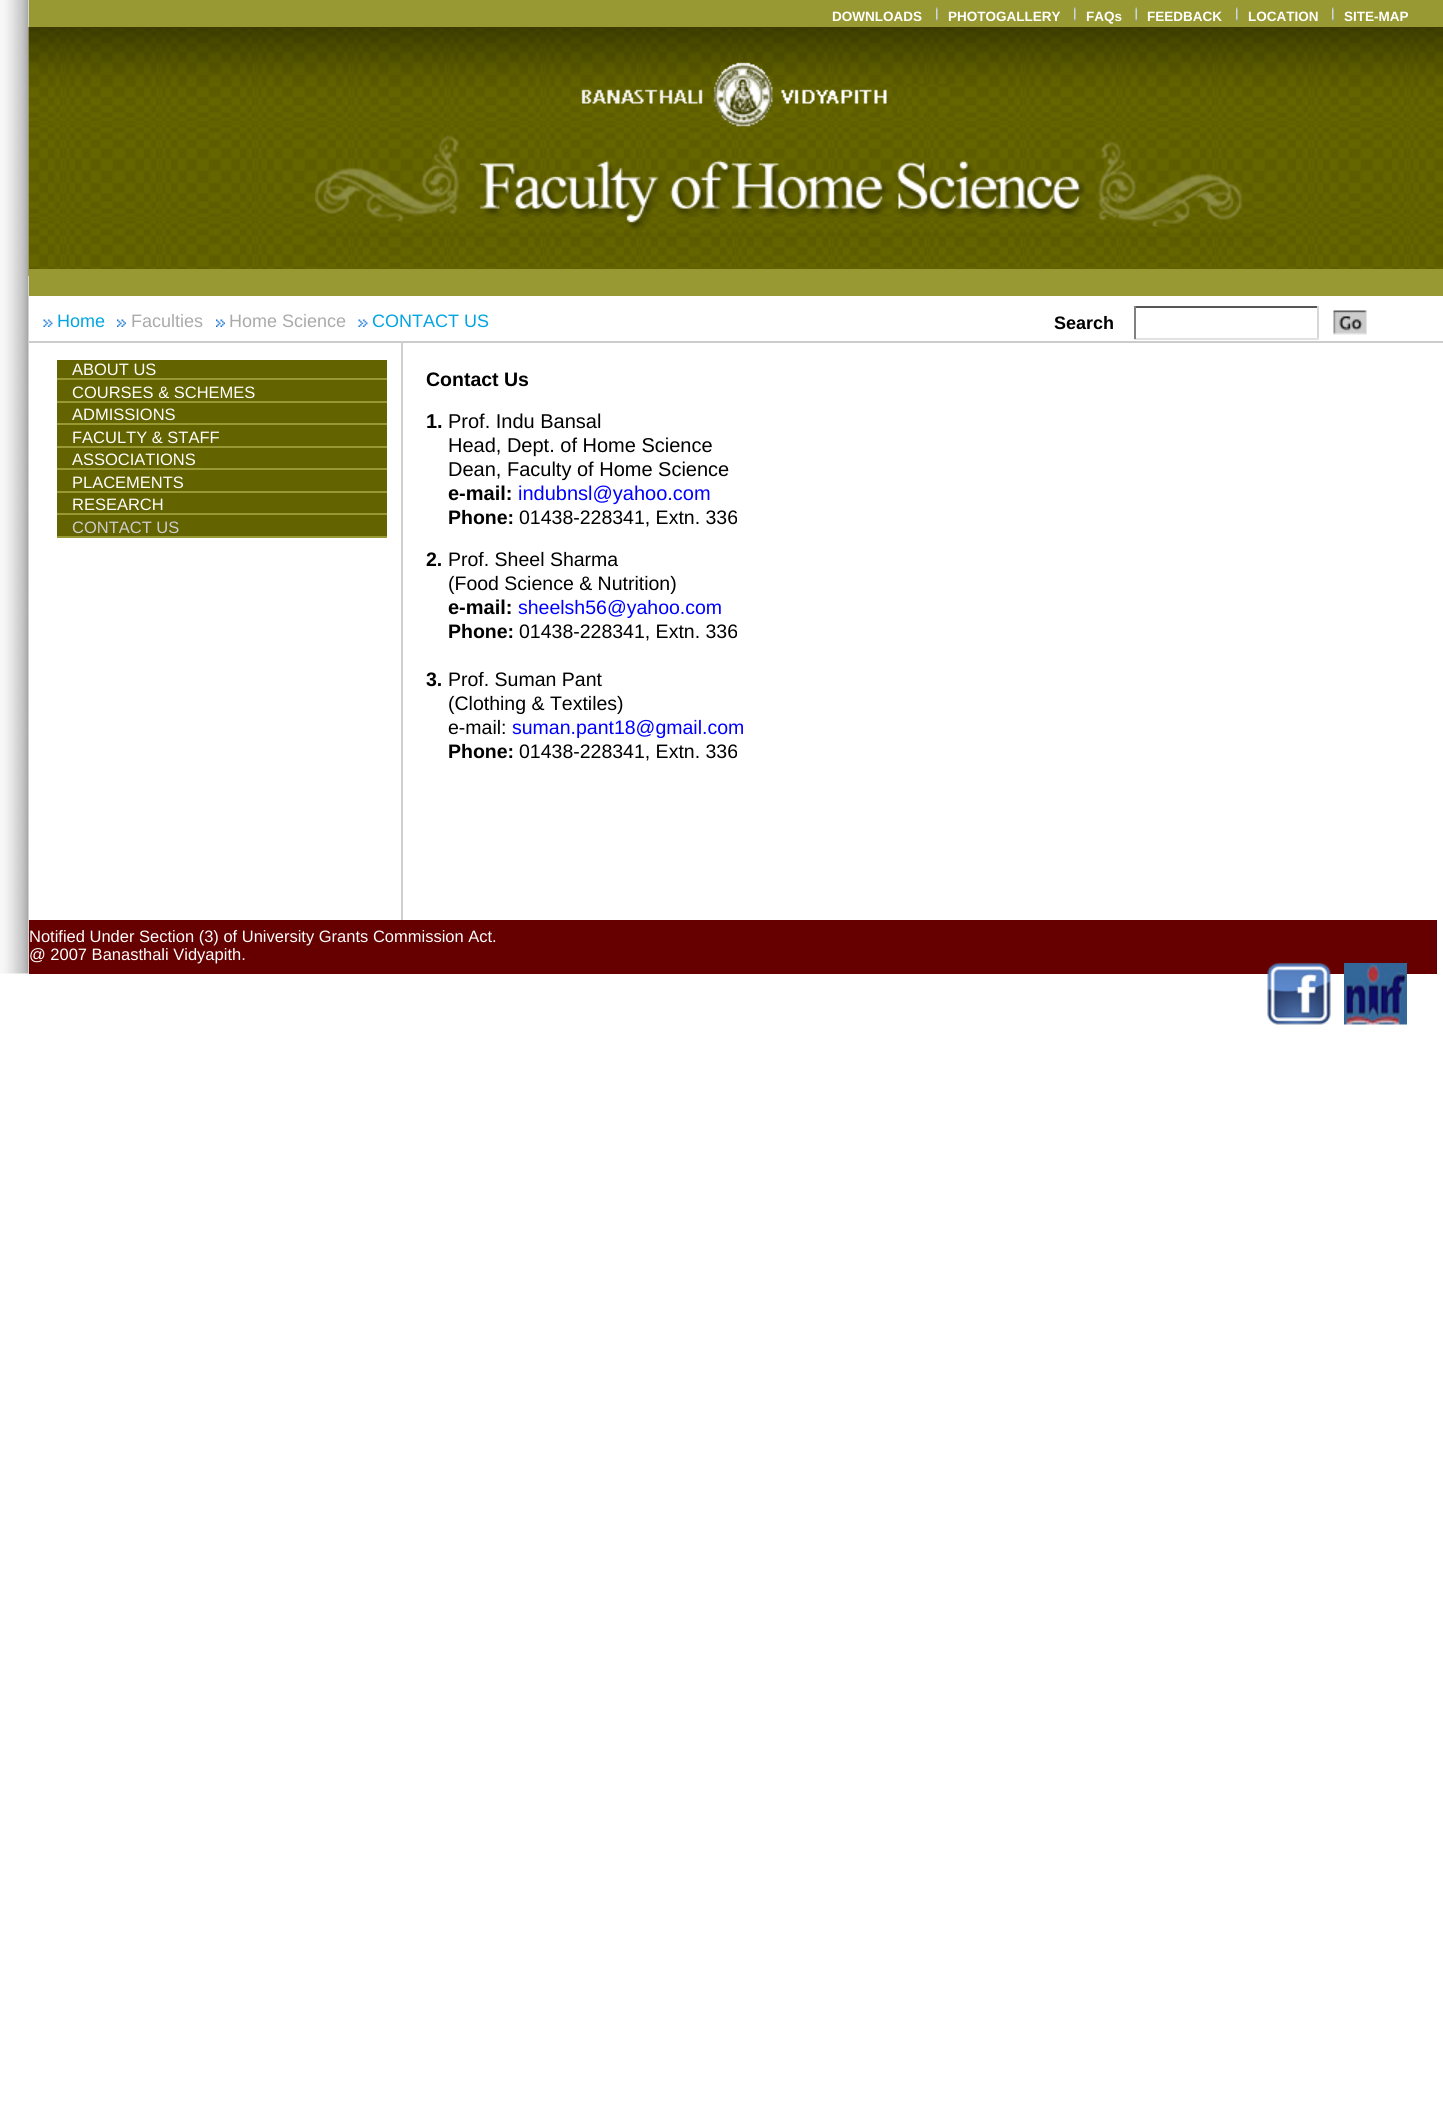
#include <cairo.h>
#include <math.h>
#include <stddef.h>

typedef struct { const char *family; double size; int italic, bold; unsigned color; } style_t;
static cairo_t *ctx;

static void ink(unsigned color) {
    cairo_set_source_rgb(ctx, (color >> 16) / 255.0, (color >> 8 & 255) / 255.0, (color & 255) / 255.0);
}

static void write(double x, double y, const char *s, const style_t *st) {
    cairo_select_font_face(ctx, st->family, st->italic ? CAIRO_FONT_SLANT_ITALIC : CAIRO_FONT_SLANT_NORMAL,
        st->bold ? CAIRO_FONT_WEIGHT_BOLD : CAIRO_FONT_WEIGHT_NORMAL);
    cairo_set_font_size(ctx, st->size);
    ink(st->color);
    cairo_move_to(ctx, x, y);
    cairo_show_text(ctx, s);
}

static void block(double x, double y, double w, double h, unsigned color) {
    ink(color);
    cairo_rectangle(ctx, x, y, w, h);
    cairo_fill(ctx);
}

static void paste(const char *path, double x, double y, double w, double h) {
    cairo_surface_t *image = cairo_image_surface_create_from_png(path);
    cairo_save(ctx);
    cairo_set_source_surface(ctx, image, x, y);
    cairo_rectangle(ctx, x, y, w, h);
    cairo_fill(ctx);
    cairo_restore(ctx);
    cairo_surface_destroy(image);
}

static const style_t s1 = {"Liberation Sans", 13.5, 0, 1, 0xffffff};
static const style_t s2 = {"Liberation Sans", 18, 0, 0, 0x03a5e0};
static const style_t s3 = {"Liberation Sans", 18, 0, 0, 0xaaaaaa};
static const style_t s4 = {"Liberation Sans", 18, 0, 1, 0x000000};
static const style_t s5 = {"Liberation Sans", 16.5, 0, 0, 0xffffff};
static const style_t s6 = {"Liberation Sans", 16.5, 0, 0, 0xcccccc};
static const style_t s7 = {"Liberation Sans", 19.5, 0, 1, 0x000000};
static const style_t s8 = {"Liberation Sans", 20, 0, 1, 0x000000};
static const style_t s9 = {"Liberation Sans", 20, 0, 0, 0x000000};
static const style_t s10 = {"Liberation Sans", 20, 0, 0, 0x0000ff};
static const style_t s11 = {"Liberation Sans", 19.5, 0, 0, 0x000000};
static const style_t s12 = {"Liberation Sans", 19.5, 0, 0, 0x0000ff};

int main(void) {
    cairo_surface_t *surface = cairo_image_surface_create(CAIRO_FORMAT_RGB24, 1443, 2110);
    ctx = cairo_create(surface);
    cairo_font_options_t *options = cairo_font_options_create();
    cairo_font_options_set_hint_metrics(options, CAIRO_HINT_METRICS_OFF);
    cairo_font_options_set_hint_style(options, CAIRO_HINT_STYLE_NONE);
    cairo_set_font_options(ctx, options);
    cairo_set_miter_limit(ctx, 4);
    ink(0xffffff);
    cairo_paint(ctx);
    paste("pic1.png", 0, 0, 29, 974);
    block(29, 0, 1414, 27, 0x999933);
    write(832, 21, "DOWNLOADS", &s1);
    paste("pic2.png", 936, 7, 2, 14);
    write(948, 21, "PHOTOGALLERY", &s1);
    paste("pic2.png", 1074, 7, 2, 14);
    write(1086, 21, "FAQs", &s1);
    paste("pic3.png", 1135, 7, 2, 14);
    write(1147, 21, "FEEDBACK", &s1);
    paste("pic2.png", 1236, 7, 2, 14);
    write(1248, 21, "LOCATION", &s1);
    paste("pic2.png", 1332, 7, 2, 14);
    write(1344, 21, "SITE-MAP", &s1);
    paste("pic4.png", 28, 27, 1415, 249);
    block(29, 269, 1414, 27, 0x999933);
    block(29, 341, 1414, 2, 0xcccccc);
    paste("pic5.png", 43, 319, 10, 8);
    write(57, 327, "Home", &s2);
    paste("pic6.png", 117, 319, 9, 8);
    write(131, 327, "Faculties", &s3);
    paste("pic6.png", 216, 319, 9, 8);
    write(229, 327, "Home Science", &s3);
    paste("pic7.png", 358, 319, 10, 8);
    write(372, 327, "CONTACT US", &s2);
    write(1054, 329, "Search", &s4);
    block(1134, 306, 185, 2, 0x565656);
    block(1317, 306, 2, 33, 0xd7d7d7);
    block(1134, 338, 185, 2, 0xe2e2e2);
    block(1134, 306, 2, 33, 0x818181);
    paste("pic8.png", 1333, 310, 34, 25);
    block(57, 360, 330, 176, 0x636300);
    block(57, 378, 330, 2, 0x999933);
    write(72, 375, "ABOUT US", &s5);
    block(57, 401, 330, 2, 0x999933);
    write(72, 398, "COURSES & SCHEMES", &s5);
    block(57, 423, 330, 2, 0x999933);
    write(72, 420, "ADMISSIONS", &s5);
    block(57, 446, 330, 2, 0x999933);
    write(72, 443, "FACULTY & STAFF", &s5);
    block(57, 468, 330, 2, 0x999933);
    write(72, 465, "ASSOCIATIONS", &s5);
    block(57, 491, 330, 2, 0x999933);
    write(72, 488, "PLACEMENTS", &s5);
    block(57, 513, 330, 2, 0x999933);
    write(72, 510, "RESEARCH", &s5);
    block(57, 536, 330, 2, 0x999933);
    write(72, 533, "CONTACT US", &s6);
    block(401, 342, 2, 578, 0xcfcfcf);
    write(426, 386, "Contact Us", &s7);
    write(426, 428, "1.", &s8);
    write(448, 428, "Prof. Indu Bansal", &s9);
    write(448, 452, "Head, Dept. of Home Science", &s9);
    write(448, 476, "Dean, Faculty of Home Science", &s9);
    write(448, 500, "e-mail:", &s8);
    write(518, 500, "indubnsl@yahoo.com", &s10);
    write(448, 524, "Phone:", &s7);
    write(519, 524, "01438-228341, Extn. 336", &s11);
    write(426, 566, "2.", &s7);
    write(448, 566, "Prof. Sheel Sharma", &s11);
    write(448, 590, "(Food Science & Nutrition)", &s11);
    write(448, 614, "e-mail:", &s8);
    write(518, 614, "sheelsh56@yahoo.com", &s12);
    write(448, 638, "Phone:", &s7);
    write(519, 638, "01438-228341, Extn. 336", &s11);
    write(426, 686, "3.", &s7);
    write(448, 686, "Prof. Suman Pant", &s11);
    write(448, 710, "(Clothing & Textiles)", &s11);
    write(448, 734, "e-mail:", &s11);
    write(512, 734, "suman.pant18@gmail.com", &s12);
    write(448, 758, "Phone:", &s7);
    write(519, 758, "01438-228341, Extn. 336", &s11);
    block(29, 920, 1408, 54, 0x660000);
    write(29, 942, "Notified Under Section (3) of University Grants Commission Act.", &s5);
    write(29, 960, "@ 2007 Banasthali Vidyapith.", &s5);
    paste("pic9.png", 1267, 963, 64, 62);
    paste("pic10.png", 1344, 963, 63, 62);
    cairo_surface_write_to_png(surface, "screenshot.png");
    cairo_font_options_destroy(options);
    cairo_destroy(ctx);
    cairo_surface_destroy(surface);
    return 0;
}
